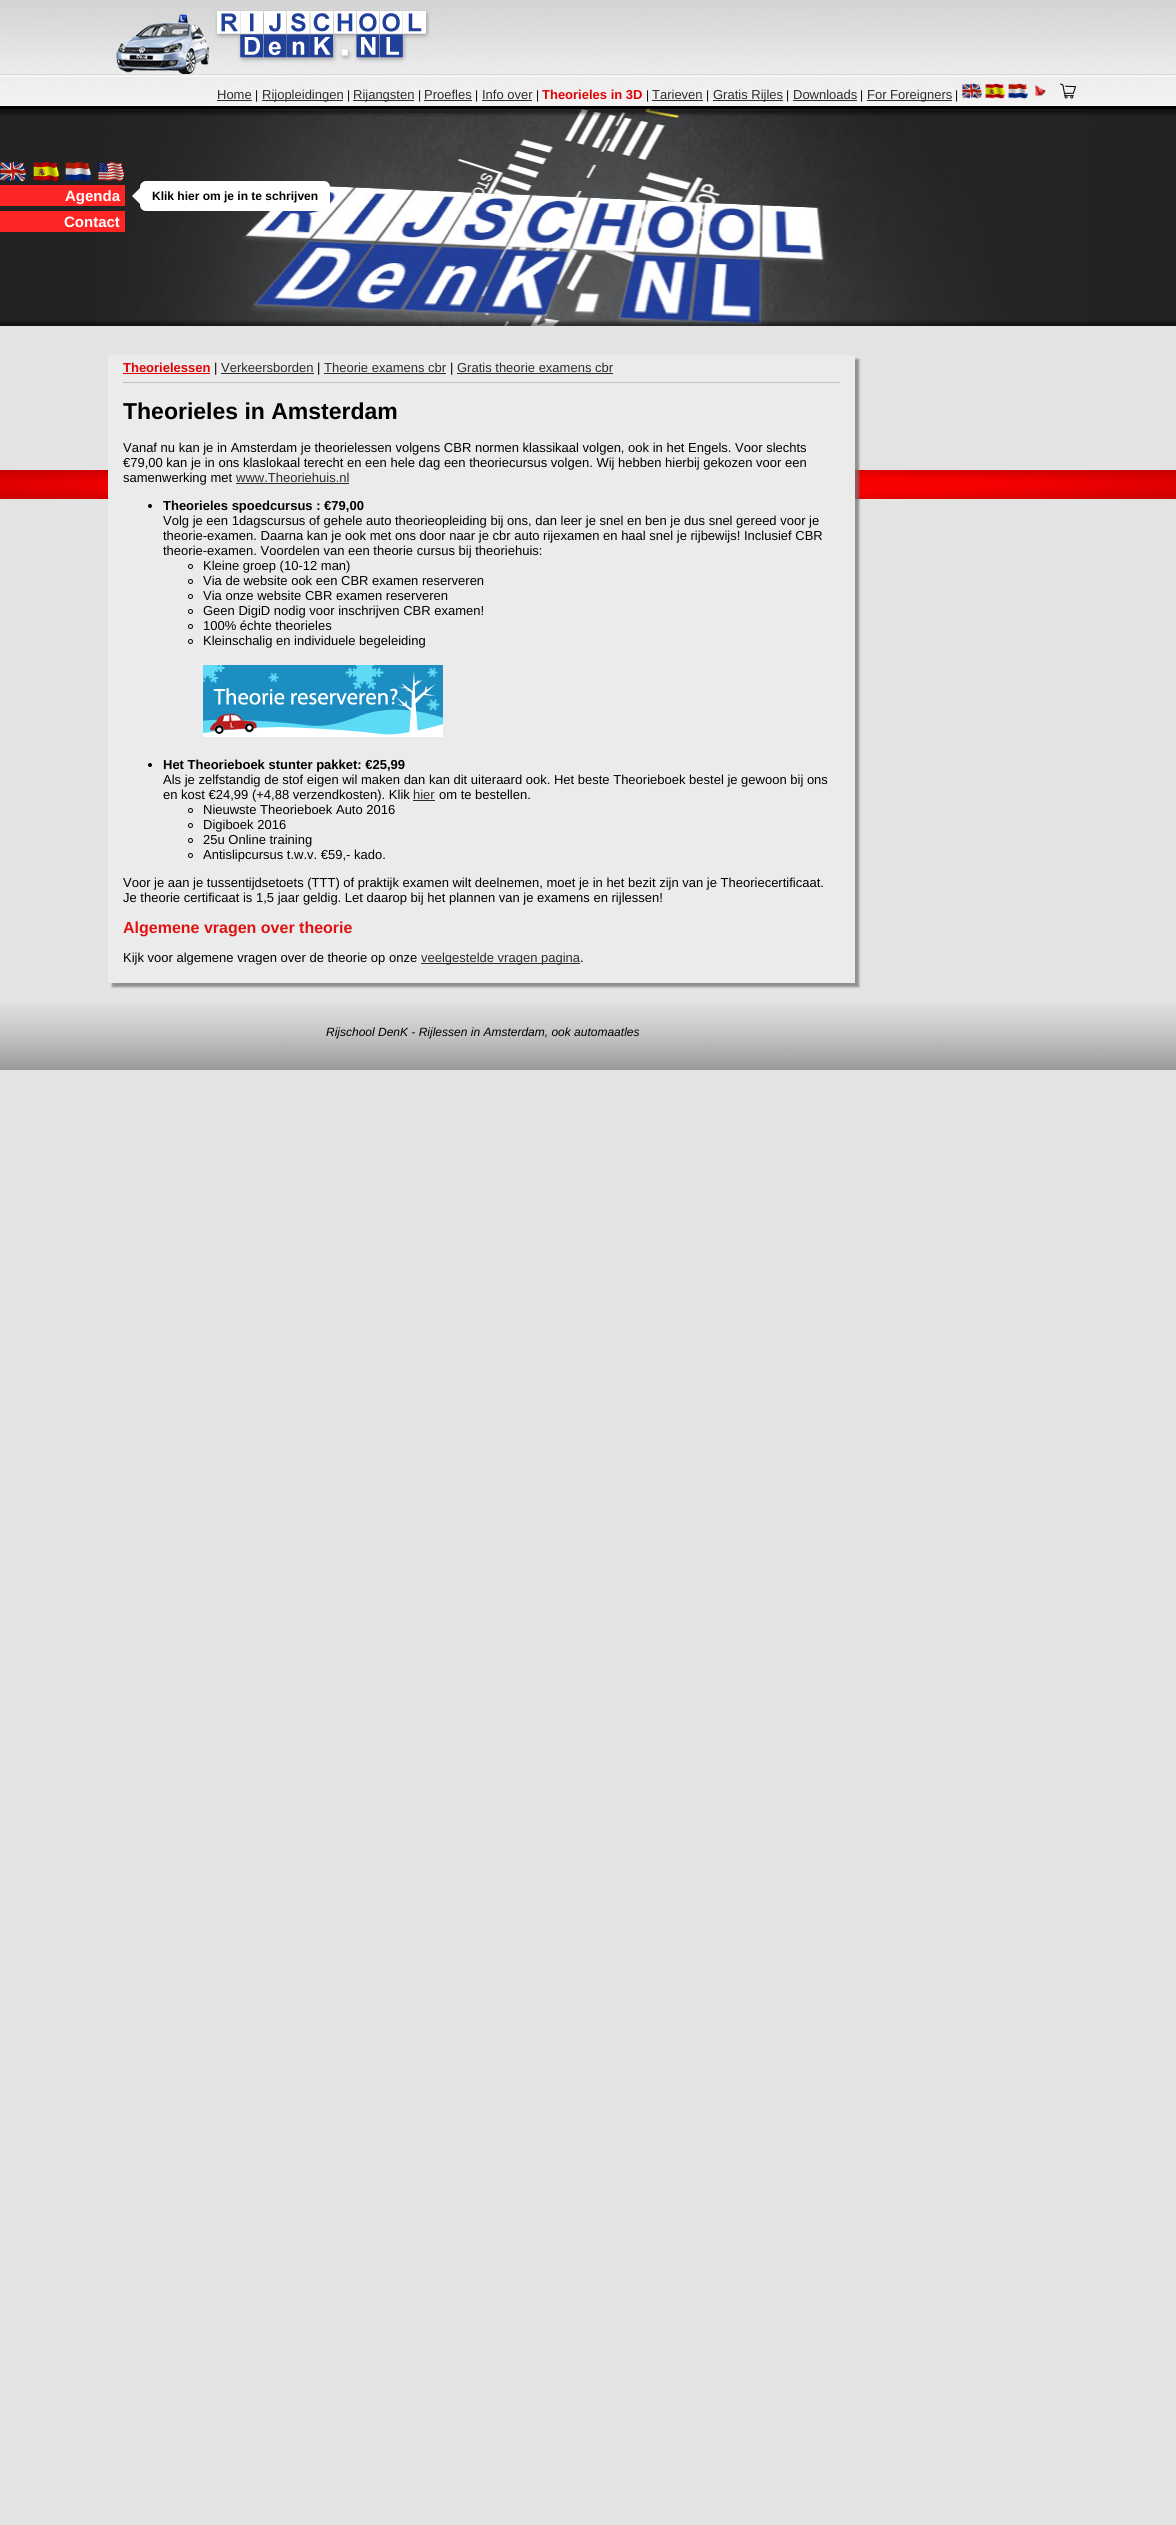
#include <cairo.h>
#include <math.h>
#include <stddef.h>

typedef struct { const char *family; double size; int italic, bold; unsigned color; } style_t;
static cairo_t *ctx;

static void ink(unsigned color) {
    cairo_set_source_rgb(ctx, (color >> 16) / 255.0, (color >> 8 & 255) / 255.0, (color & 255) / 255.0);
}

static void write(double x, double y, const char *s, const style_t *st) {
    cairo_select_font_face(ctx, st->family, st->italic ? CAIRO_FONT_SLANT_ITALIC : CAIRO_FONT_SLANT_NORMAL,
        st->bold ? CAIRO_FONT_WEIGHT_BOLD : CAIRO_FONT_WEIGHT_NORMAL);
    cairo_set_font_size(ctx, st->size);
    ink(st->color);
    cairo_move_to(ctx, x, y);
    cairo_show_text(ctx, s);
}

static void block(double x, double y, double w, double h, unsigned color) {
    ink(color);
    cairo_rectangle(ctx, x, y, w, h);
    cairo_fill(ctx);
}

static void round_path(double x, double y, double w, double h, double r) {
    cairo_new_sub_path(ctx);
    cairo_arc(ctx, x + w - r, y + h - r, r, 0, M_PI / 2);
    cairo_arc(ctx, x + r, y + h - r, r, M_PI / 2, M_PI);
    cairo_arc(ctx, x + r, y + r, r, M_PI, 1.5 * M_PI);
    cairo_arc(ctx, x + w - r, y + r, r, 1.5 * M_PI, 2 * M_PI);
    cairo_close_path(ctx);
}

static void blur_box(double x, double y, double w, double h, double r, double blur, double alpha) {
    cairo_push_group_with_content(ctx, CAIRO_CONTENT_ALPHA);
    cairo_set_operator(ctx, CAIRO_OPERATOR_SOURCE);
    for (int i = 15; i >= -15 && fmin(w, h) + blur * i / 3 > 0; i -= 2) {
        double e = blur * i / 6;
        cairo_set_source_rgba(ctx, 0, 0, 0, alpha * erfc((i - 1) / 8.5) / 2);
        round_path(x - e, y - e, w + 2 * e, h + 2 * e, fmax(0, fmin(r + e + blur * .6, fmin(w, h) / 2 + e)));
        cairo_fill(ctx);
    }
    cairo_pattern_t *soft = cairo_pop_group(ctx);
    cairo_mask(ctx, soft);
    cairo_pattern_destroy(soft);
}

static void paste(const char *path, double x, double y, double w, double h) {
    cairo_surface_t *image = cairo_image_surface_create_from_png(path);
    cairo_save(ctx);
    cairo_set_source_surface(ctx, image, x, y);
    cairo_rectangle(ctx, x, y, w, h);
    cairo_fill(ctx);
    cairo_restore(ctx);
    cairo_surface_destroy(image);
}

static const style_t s1 = {"Liberation Sans", 13, 0, 0, 0x2c2c2c};
static const style_t s2 = {"Liberation Sans", 12, 0, 0, 0x000000};
static const style_t s3 = {"Liberation Sans", 13, 0, 1, 0xe20101};
static const style_t s4 = {"Liberation Sans", 15, 0, 1, 0xffffff};
static const style_t s5 = {"Liberation Sans", 12, 0, 1, 0x000000};
static const style_t s6 = {"Liberation Sans", 13, 0, 0, 0x000000};
static const style_t s7 = {"Liberation Sans", 23, 0, 1, 0x000000};
static const style_t s8 = {"Liberation Sans", 13, 0, 1, 0x000000};
static const style_t s9 = {"Liberation Sans", 16, 0, 1, 0xe11111};
static const style_t s10 = {"Liberation Sans", 12, 1, 0, 0x000000};

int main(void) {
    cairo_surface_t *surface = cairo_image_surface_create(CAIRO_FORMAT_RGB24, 1176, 2525);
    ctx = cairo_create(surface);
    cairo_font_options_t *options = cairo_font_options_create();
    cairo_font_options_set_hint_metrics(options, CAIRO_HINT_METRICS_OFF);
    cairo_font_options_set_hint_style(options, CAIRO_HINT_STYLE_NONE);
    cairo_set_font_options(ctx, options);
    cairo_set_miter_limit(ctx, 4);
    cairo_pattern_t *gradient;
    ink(0xe3e3e3);
    cairo_paint(ctx);
    paste("pic1.png", 0, 0, 1176, 106);
    paste("pic2.png", 115, 10, 315, 64);
    write(217, 99, "Home", &s1);
    block(217, 100, 35, 1, 0x2c2c2c);
    write(255, 99, "|", &s2);
    block(262, 100, 81, 1, 0x2c2c2c);
    write(262, 99, "Rijopleidingen", &s1);
    write(347, 99, "|", &s2);
    block(353, 100, 61, 1, 0x2c2c2c);
    write(353, 99, "Rijangsten", &s1);
    write(418, 99, "|", &s2);
    write(424, 99, "Proefles", &s1);
    block(424, 100, 48, 1, 0x2c2c2c);
    write(475, 99, "|", &s2);
    write(482, 99, "Info over", &s1);
    block(482, 100, 50, 1, 0x2c2c2c);
    write(536, 99, "|", &s2);
    write(542, 99, "Theorieles in 3D", &s3);
    write(646, 99, "|", &s2);
    write(652, 99, "Tarieven", &s1);
    block(652, 100, 51, 1, 0x2c2c2c);
    write(706, 99, "|", &s2);
    block(713, 100, 70, 1, 0x2c2c2c);
    write(713, 99, "Gratis Rijles", &s1);
    write(786, 99, "|", &s2);
    write(793, 99, "Downloads", &s1);
    block(793, 100, 64, 1, 0x2c2c2c);
    write(860, 99, "|", &s2);
    block(867, 100, 85, 1, 0x2c2c2c);
    write(867, 99, "For Foreigners", &s1);
    write(955, 99, "|", &s2);
    paste("pic3.png", 962, 83, 20, 16);
    paste("pic4.png", 985, 83, 20, 16);
    paste("pic5.png", 1008, 83, 20, 16);
    paste("pic6.png", 1035, 85, 11, 12);
    paste("pic7.png", 1060, 83, 16, 16);
    paste("pic8.png", 0, 106, 1176, 220);
    paste("pic9.png", 0, 161, 26, 21);
    paste("pic10.png", 33, 161, 26, 21);
    paste("pic11.png", 65, 161, 26, 21);
    paste("pic12.png", 98, 161, 26, 21);
    block(0, 185, 125, 21, 0xff2525);
    write(65, 201, "Agenda", &s4);
    round_path(140, 181, 190, 30, 6);
    cairo_fill(ctx);
    cairo_new_path(ctx);
    cairo_move_to(ctx, 140, 188);
    cairo_line_to(ctx, 140, 204);
    cairo_line_to(ctx, 132, 196);
    cairo_close_path(ctx);
    cairo_fill(ctx);
    write(152, 200, "Klik hier om je in te schrijven", &s5);
    block(0, 211, 125, 21, 0xff2525);
    write(64, 227, "Contact", &s4);
    gradient = cairo_pattern_create_radial(0, 0, 0, 0, 0, 1);
    cairo_pattern_set_matrix(gradient, &(cairo_matrix_t){1.0 / 832, 0, 0, 1.0 / 21, -1.0 * 588 / 832, -1.0 * 485 / 21});
    cairo_pattern_add_color_stop_rgba(gradient, 0.5, 0.965, 0, 0, 1);
    cairo_pattern_add_color_stop_rgba(gradient, 1, 0.757, 0, 0, 1);
    cairo_set_source(ctx, gradient);
    cairo_pattern_destroy(gradient);
    cairo_rectangle(ctx, 0, 470, 1176, 29);
    cairo_fill(ctx);
    ink(0x747474);
    blur_box(112, 359, 747, 628, 0, 1, 0.75);
    block(108, 355, 747, 628, 0xebebeb);
    write(123, 372, "Theorielessen", &s3);
    block(123, 373, 87, 1, 0xe20101);
    write(214, 372, "|", &s6);
    write(221, 372, "Verkeersborden", &s1);
    block(221, 373, 93, 1, 0x2c2c2c);
    write(317, 372, "|", &s6);
    write(324, 372, "Theorie examens cbr", &s1);
    block(324, 373, 122, 1, 0x2c2c2c);
    write(450, 372, "|", &s6);
    write(457, 372, "Gratis theorie examens cbr", &s1);
    block(457, 373, 156, 1, 0x2c2c2c);
    block(123, 382, 717, 1, 0xc0c0c0);
    write(123, 419, "Theorieles in Amsterdam", &s7);
    write(123, 452, "Vanaf nu kan je in Amsterdam je theorielessen volgens CBR normen klassikaal volgen, ook in het Engels. Voor slechts", &s6);
    write(123, 467, "€79,00 kan je in ons klaslokaal terecht en een hele dag een theoriecursus volgen. Wij hebben hierbij gekozen voor een", &s6);
    write(123, 482, "samenwerking met", &s6);
    write(236, 482, "www.Theoriehuis.nl", &s1);
    block(236, 483, 113, 1, 0x2c2c2c);
    ink(0x000000);
    cairo_new_path(ctx);
    cairo_arc(ctx, 150, 506, 2, 0, 2 * M_PI);
    cairo_fill(ctx);
    write(163, 510, "Theorieles spoedcursus : €79,00", &s8);
    write(163, 525, "Volg je een 1dagscursus of gehele auto theorieopleiding bij ons, dan leer je snel en ben je dus snel gereed voor je", &s6);
    write(163, 540, "theorie-examen. Daarna kan je ook met ons door naar je cbr auto rijexamen en haal snel je rijbewijs! Inclusief CBR", &s6);
    write(163, 555, "theorie-examen. Voordelen van een theorie cursus bij theoriehuis:", &s6);
    cairo_new_path(ctx);
    cairo_arc(ctx, 190.5, 566.5, 2, 0, 2 * M_PI);
    cairo_set_line_width(ctx, 1);
    cairo_stroke(ctx);
    write(203, 570, "Kleine groep (10-12 man)", &s6);
    cairo_new_path(ctx);
    cairo_arc(ctx, 190.5, 581.5, 2, 0, 2 * M_PI);
    cairo_stroke(ctx);
    write(203, 585, "Via de website ook een CBR examen reserveren", &s6);
    cairo_new_path(ctx);
    cairo_arc(ctx, 190.5, 596.5, 2, 0, 2 * M_PI);
    cairo_stroke(ctx);
    write(203, 600, "Via onze website CBR examen reserveren", &s6);
    cairo_new_path(ctx);
    cairo_arc(ctx, 190.5, 611.5, 2, 0, 2 * M_PI);
    cairo_stroke(ctx);
    write(203, 615, "Geen DigiD nodig voor inschrijven CBR examen!", &s6);
    cairo_new_path(ctx);
    cairo_arc(ctx, 190.5, 626.5, 2, 0, 2 * M_PI);
    cairo_stroke(ctx);
    write(203, 630, "100% échte theorieles", &s6);
    cairo_new_path(ctx);
    cairo_arc(ctx, 190.5, 641.5, 2, 0, 2 * M_PI);
    cairo_stroke(ctx);
    write(203, 645, "Kleinschalig en individuele begeleiding", &s6);
    paste("pic13.png", 203, 665, 240, 72);
    cairo_arc(ctx, 150, 765, 2, 0, 2 * M_PI);
    cairo_fill(ctx);
    write(163, 769, "Het Theorieboek stunter pakket: €25,99", &s8);
    write(163, 784, "Als je zelfstandig de stof eigen wil maken dan kan dit uiteraard ook. Het beste Theorieboek bestel je gewoon bij ons", &s6);
    write(163, 799, "en kost €24,99 (+4,88 verzendkosten). Klik", &s6);
    write(413, 799, "hier", &s1);
    block(413, 800, 22, 1, 0x2c2c2c);
    write(439, 799, "om te bestellen.", &s6);
    cairo_new_path(ctx);
    cairo_arc(ctx, 190.5, 810.5, 2, 0, 2 * M_PI);
    cairo_stroke(ctx);
    write(203, 814, "Nieuwste Theorieboek Auto 2016", &s6);
    cairo_new_path(ctx);
    cairo_arc(ctx, 190.5, 825.5, 2, 0, 2 * M_PI);
    cairo_stroke(ctx);
    write(203, 829, "Digiboek 2016", &s6);
    cairo_new_path(ctx);
    cairo_arc(ctx, 190.5, 840.5, 2, 0, 2 * M_PI);
    cairo_stroke(ctx);
    write(203, 844, "25u Online training", &s6);
    cairo_new_path(ctx);
    cairo_arc(ctx, 190.5, 855.5, 2, 0, 2 * M_PI);
    cairo_stroke(ctx);
    write(203, 859, "Antislipcursus t.w.v. €59,- kado.", &s6);
    write(123, 887, "Voor je aan je tussentijdsetoets (TTT) of praktijk examen wilt deelnemen, moet je in het bezit zijn van je Theoriecertificaat.", &s6);
    write(123, 902, "Je theorie certificaat is 1,5 jaar geldig. Let daarop bij het plannen van je examens en rijlessen!", &s6);
    write(123, 933, "Algemene vragen over theorie", &s9);
    write(123, 962, "Kijk voor algemene vragen over de theorie op onze", &s6);
    block(421, 963, 159, 1, 0x2c2c2c);
    write(421, 962, "veelgestelde vragen pagina", &s1);
    write(580, 962, ".", &s6);
    paste("pic14.png", 0, 1004, 1176, 66);
    write(326, 1036, "Rijschool DenK - Rijlessen in Amsterdam, ook automaatles", &s10);
    cairo_surface_write_to_png(surface, "screenshot.png");
    cairo_font_options_destroy(options);
    cairo_destroy(ctx);
    cairo_surface_destroy(surface);
    return 0;
}
